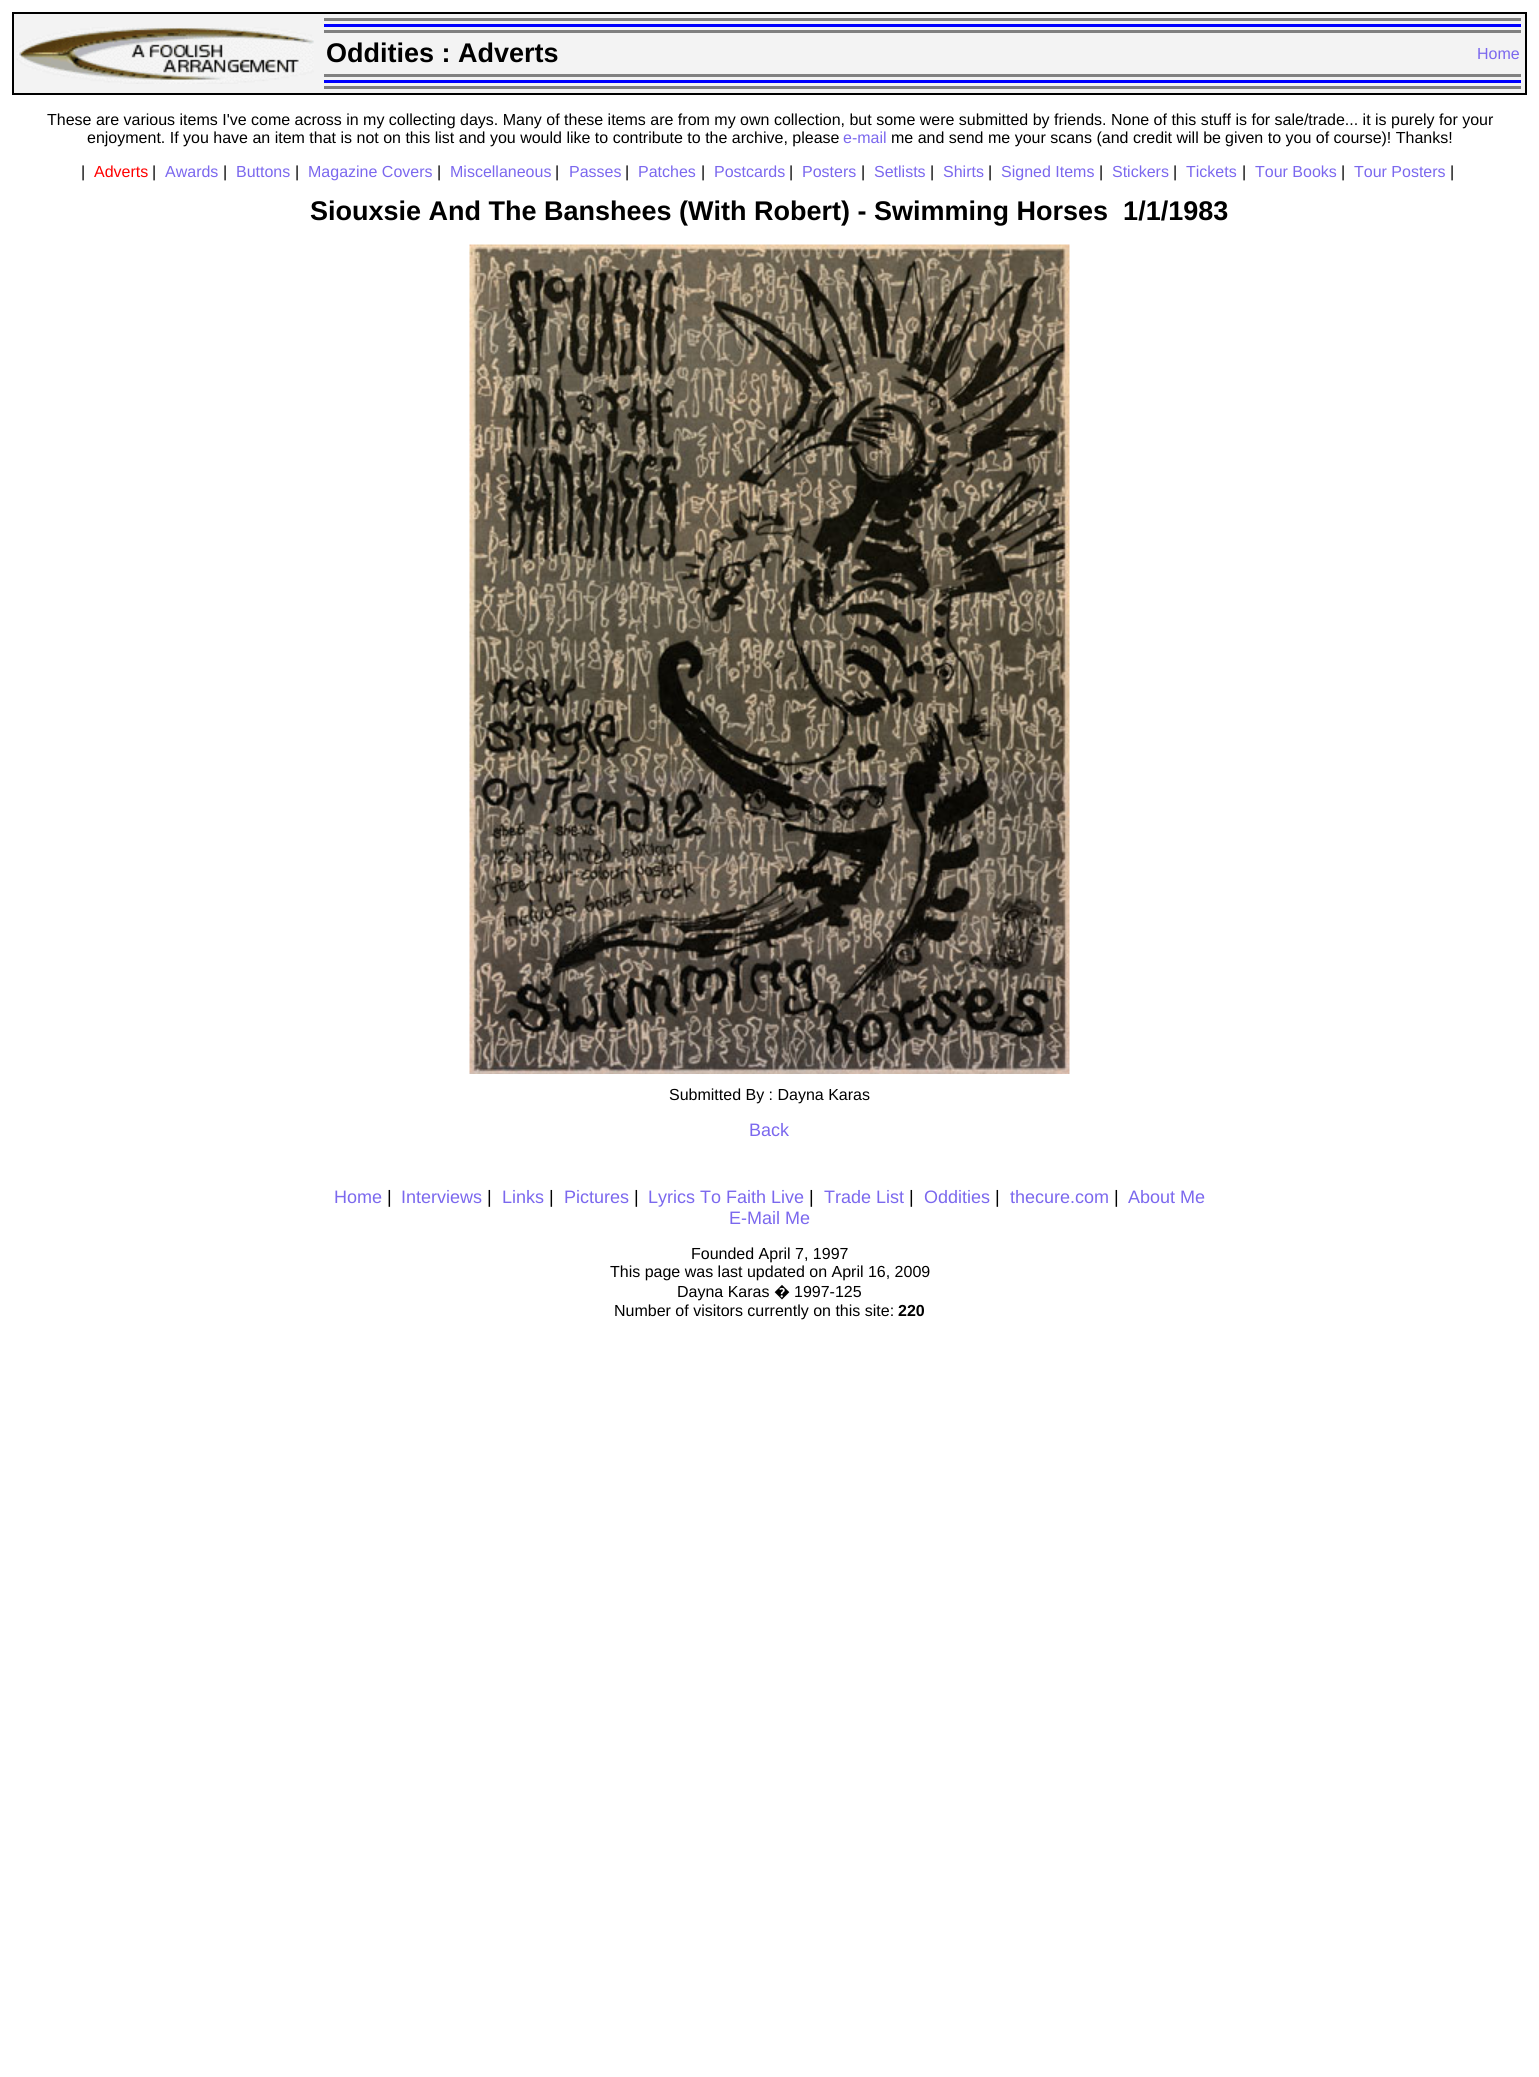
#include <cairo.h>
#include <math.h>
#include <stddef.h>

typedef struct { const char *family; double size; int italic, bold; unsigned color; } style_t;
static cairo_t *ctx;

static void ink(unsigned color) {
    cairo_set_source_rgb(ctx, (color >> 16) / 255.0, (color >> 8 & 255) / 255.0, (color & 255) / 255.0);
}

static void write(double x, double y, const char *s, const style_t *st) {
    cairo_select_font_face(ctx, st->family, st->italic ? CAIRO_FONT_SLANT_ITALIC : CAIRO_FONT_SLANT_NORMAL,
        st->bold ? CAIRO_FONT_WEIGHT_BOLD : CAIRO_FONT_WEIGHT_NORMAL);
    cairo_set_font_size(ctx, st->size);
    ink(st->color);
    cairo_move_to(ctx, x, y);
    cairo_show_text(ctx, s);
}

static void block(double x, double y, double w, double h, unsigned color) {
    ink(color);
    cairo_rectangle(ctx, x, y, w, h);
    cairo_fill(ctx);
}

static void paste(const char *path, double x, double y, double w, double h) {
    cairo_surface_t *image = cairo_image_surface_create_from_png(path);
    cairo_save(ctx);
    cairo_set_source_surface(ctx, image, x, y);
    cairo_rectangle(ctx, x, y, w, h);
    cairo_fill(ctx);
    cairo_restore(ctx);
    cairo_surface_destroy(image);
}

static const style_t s1 = {"Liberation Sans", 27, 0, 1, 0x000000};
static const style_t s2 = {"Liberation Sans", 16, 0, 0, 0x7b68ee};
static const style_t s3 = {"Liberation Sans", 16, 0, 0, 0x000000};
static const style_t s4 = {"Liberation Sans", 16, 0, 0, 0xff0000};
static const style_t s5 = {"Liberation Sans", 18, 0, 0, 0x7b68ee};
static const style_t s6 = {"Liberation Sans", 18, 0, 0, 0x000000};
static const style_t s7 = {"Noto Sans", 16, 0, 0, 0x000000};
static const style_t s8 = {"Liberation Sans", 16, 0, 1, 0x000000};

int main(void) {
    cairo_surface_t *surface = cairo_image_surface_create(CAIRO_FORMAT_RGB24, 1539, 2077);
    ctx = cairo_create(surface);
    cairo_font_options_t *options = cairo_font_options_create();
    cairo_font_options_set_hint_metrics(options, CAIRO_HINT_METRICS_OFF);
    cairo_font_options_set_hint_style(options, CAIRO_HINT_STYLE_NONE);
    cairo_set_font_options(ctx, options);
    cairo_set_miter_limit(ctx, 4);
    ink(0xffffff);
    cairo_paint(ctx);
    ink(0xf3f3f3);
    cairo_rectangle(ctx, 13, 13, 1513, 81);
    cairo_fill_preserve(ctx);
    ink(0x000000);
    cairo_stroke(ctx);
    paste("pic1.png", 16, 27, 298, 57);
    block(324, 18, 1197, 3, 0x808080);
    block(324, 24, 1197, 3, 0x0000ff);
    block(324, 30, 1197, 3, 0x808080);
    write(326, 62, "Oddities : Adverts", &s1);
    write(1477, 59, "Home", &s2);
    block(324, 74, 1197, 3, 0x808080);
    block(324, 80, 1197, 3, 0x0000ff);
    block(324, 86, 1197, 3, 0x808080);
    write(47, 125, "These are various items I've come across in my collecting days. Many of these items are from my own collection, but some were submitted by friends. None of this stuff is for sale/trade... it is purely for your", &s3);
    write(87, 143, "enjoyment. If you have an item that is not on this list and you would like to contribute to the archive, please", &s3);
    write(843, 143, "e-mail", &s2);
    write(891, 143, "me and send me your scans (and credit will be", &s3);
    write(1225, 143, "given to you of course)! Thanks!", &s3);
    write(81, 177, "|", &s3);
    write(94, 177, "Adverts", &s4);
    write(152, 177, "|", &s3);
    write(165, 177, "Awards", &s2);
    write(223, 177, "|", &s3);
    write(236, 177, "Buttons", &s2);
    write(295, 177, "|", &s3);
    write(308, 177, "Magazine Covers", &s2);
    write(437, 177, "|", &s3);
    write(450, 177, "Miscellaneous", &s2);
    write(555, 177, "|", &s3);
    write(569, 177, "Passes", &s2);
    write(625, 177, "|", &s3);
    write(638, 177, "Patches", &s2);
    write(701, 177, "|", &s3);
    write(714, 177, "Postcards", &s2);
    write(789, 177, "|", &s3);
    write(802, 177, "Posters", &s2);
    write(861, 177, "|", &s3);
    write(874, 177, "Setlists", &s2);
    write(930, 177, "|", &s3);
    write(943, 177, "Shirts", &s2);
    write(988, 177, "|", &s3);
    write(1001, 177, "Signed Items", &s2);
    write(1099, 177, "|", &s3);
    write(1112, 177, "Stickers", &s2);
    write(1173, 177, "|", &s3);
    write(1186, 177, "Tickets", &s2);
    write(1242, 177, "|", &s3);
    write(1255, 177, "Tour Books", &s2);
    write(1341, 177, "|", &s3);
    write(1354, 177, "Tour Posters", &s2);
    write(1450, 177, "|", &s3);
    write(310, 220, "Siouxsie And The Banshees (With Robert) - Swimming Horses  1/1/1983", &s1);
    paste("pic2.png", 469, 244, 601, 830);
    write(669, 1100, "Submitted By : Dayna Karas", &s3);
    write(749, 1136, "Back", &s5);
    write(334, 1203, "Home", &s5);
    write(387, 1203, "|", &s6);
    write(401, 1203, "Interviews", &s5);
    write(487, 1203, "|", &s6);
    write(502, 1203, "Links", &s5);
    write(549, 1203, "|", &s6);
    write(564, 1203, "Pictures", &s5);
    write(634, 1203, "|", &s6);
    write(648, 1203, "Lyrics To Faith Live", &s5);
    write(809, 1203, "|", &s6);
    write(824, 1203, "Trade List", &s5);
    write(909, 1203, "|", &s6);
    write(924, 1203, "Oddities", &s5);
    write(995, 1203, "|", &s6);
    write(1010, 1203, "thecure.com", &s5);
    write(1114, 1203, "|", &s6);
    write(1128, 1203, "About Me", &s5);
    write(729, 1224, "E-Mail Me", &s5);
    write(691, 1259, "Founded April 7, 1997", &s3);
    write(610, 1277, "This page was last updated on April 16, 2009", &s3);
    write(677, 1297, "Dayna Karas", &s3);
    write(774, 1297, "�", &s7);
    write(794, 1297, "1997-125", &s3);
    write(614, 1316, "Number of visitors currently on this site:", &s3);
    write(898, 1316, "220", &s8);
    cairo_surface_write_to_png(surface, "screenshot.png");
    cairo_font_options_destroy(options);
    cairo_destroy(ctx);
    cairo_surface_destroy(surface);
    return 0;
}
